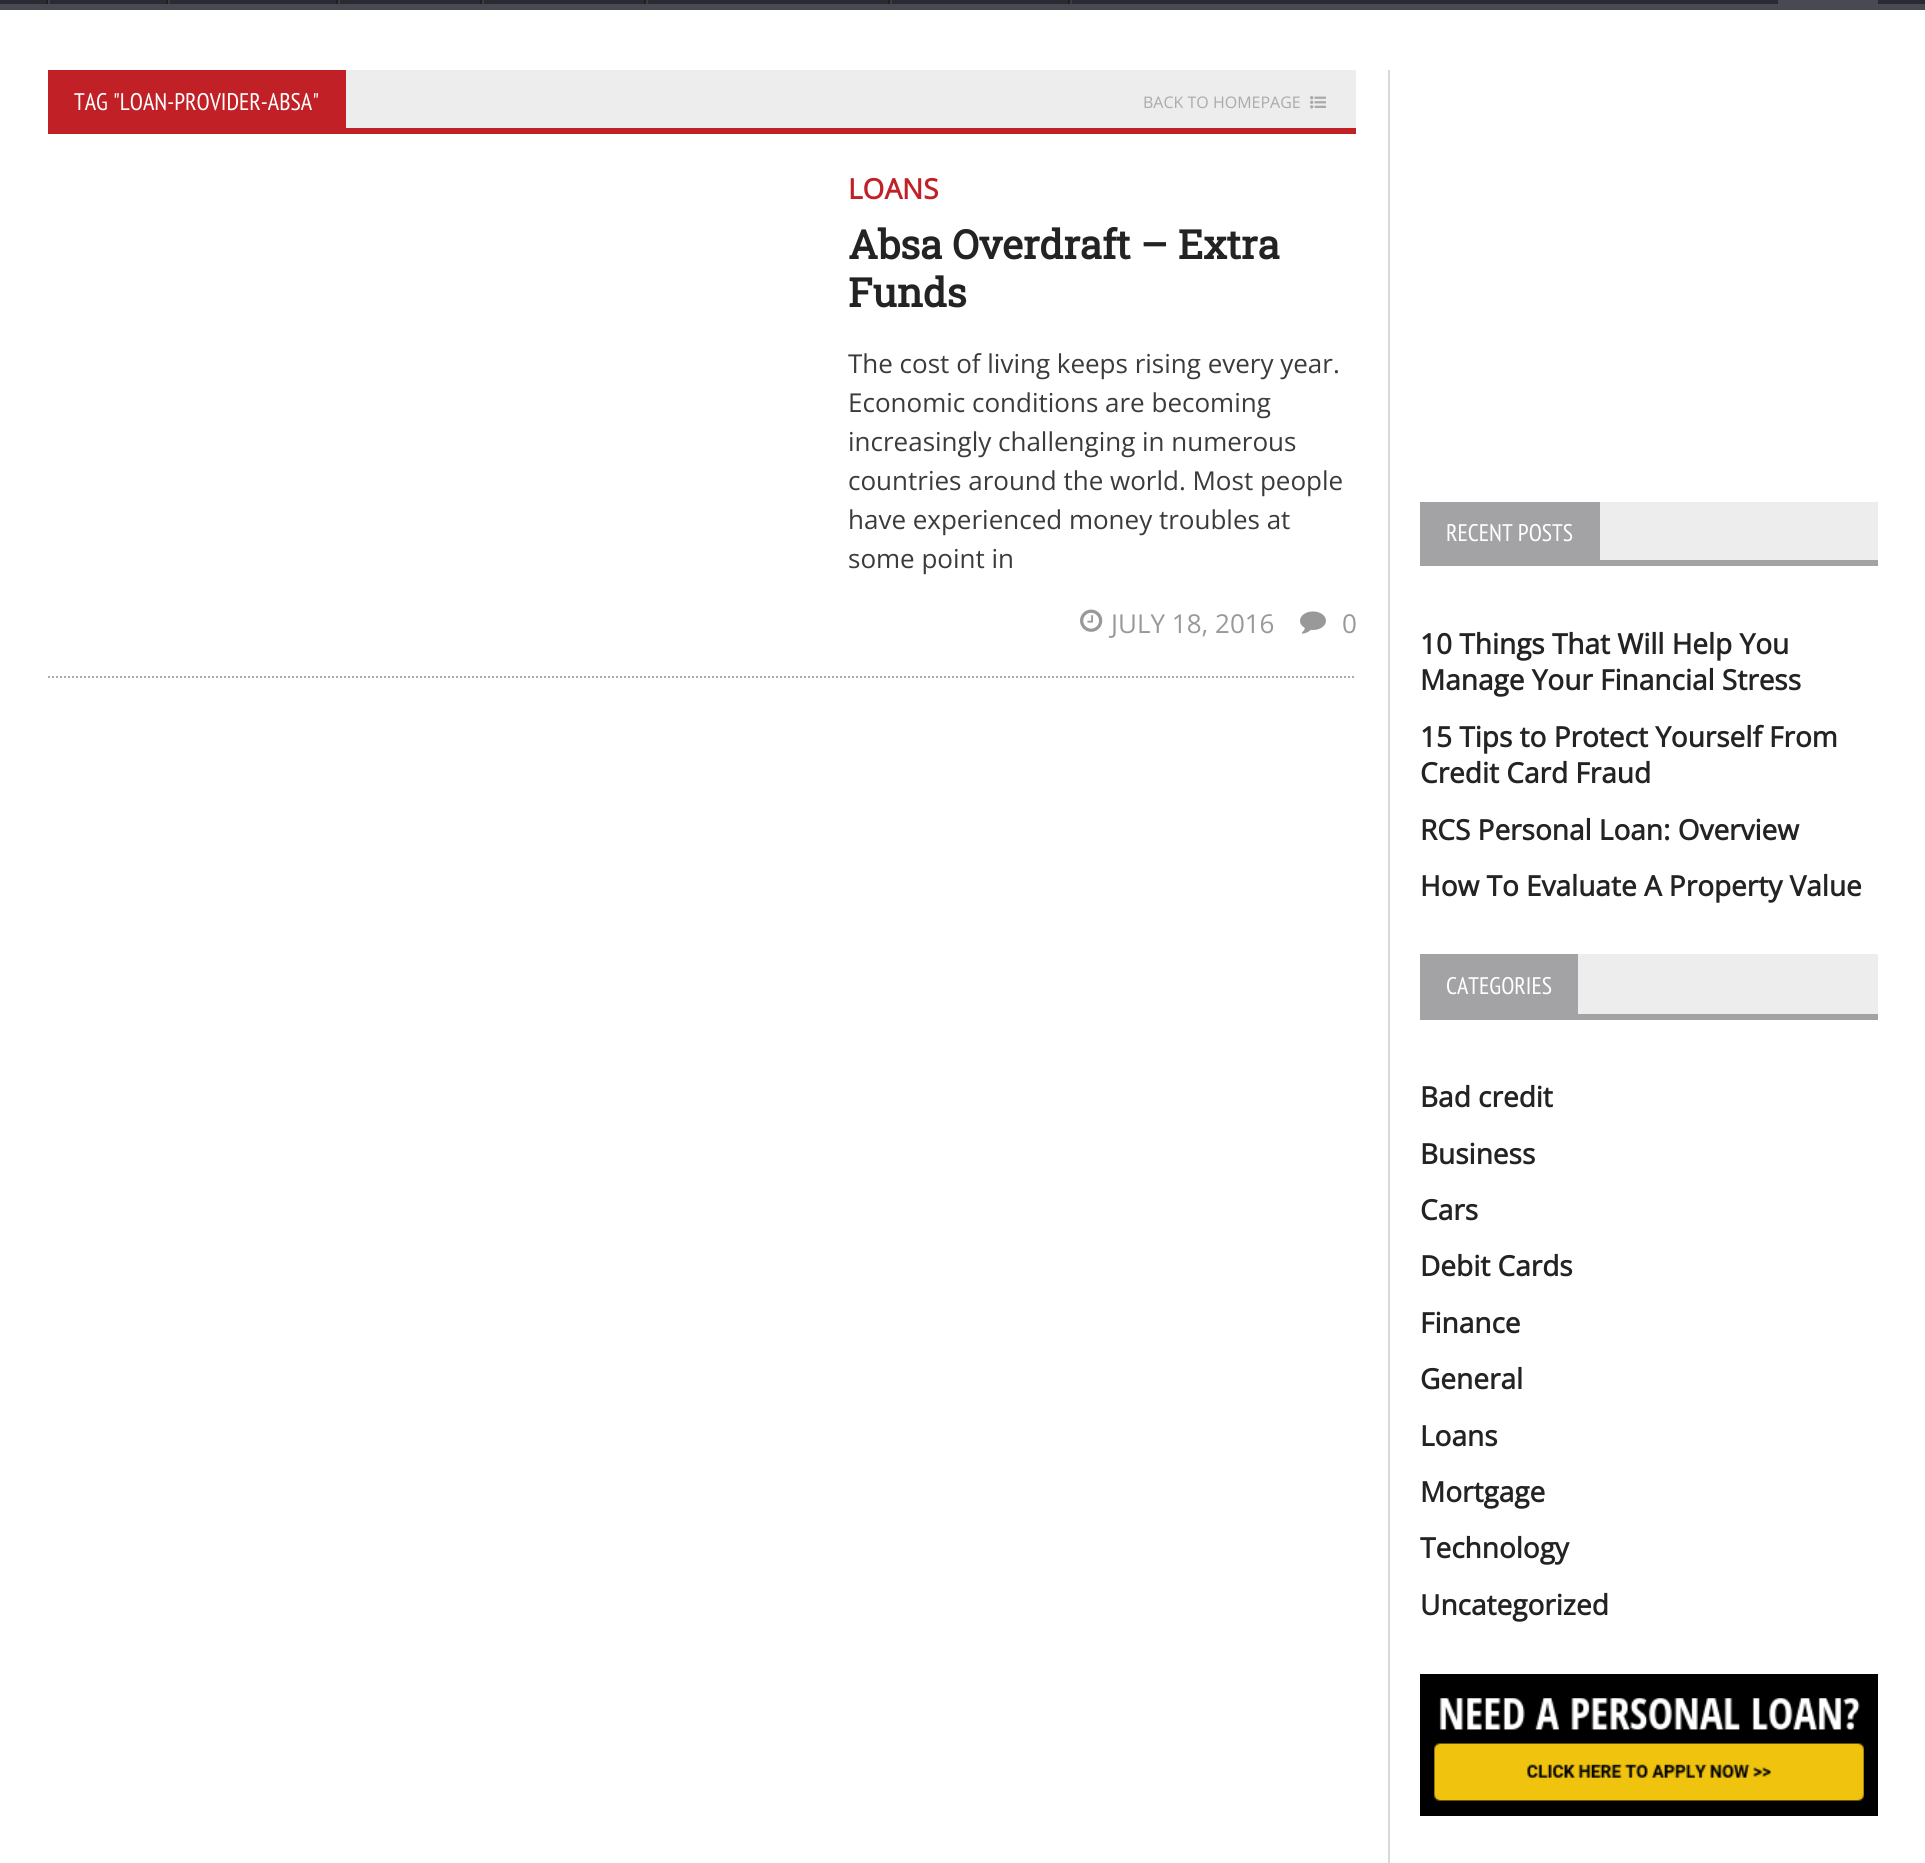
#include <cairo.h>
#include <math.h>
#include <stddef.h>

typedef struct { const char *family; double size; int italic, bold; unsigned color; } style_t;
static cairo_t *ctx;

static void ink(unsigned color) {
    cairo_set_source_rgb(ctx, (color >> 16) / 255.0, (color >> 8 & 255) / 255.0, (color & 255) / 255.0);
}

static void write(double x, double y, const char *s, const style_t *st) {
    cairo_select_font_face(ctx, st->family, st->italic ? CAIRO_FONT_SLANT_ITALIC : CAIRO_FONT_SLANT_NORMAL,
        st->bold ? CAIRO_FONT_WEIGHT_BOLD : CAIRO_FONT_WEIGHT_NORMAL);
    cairo_set_font_size(ctx, st->size);
    ink(st->color);
    cairo_move_to(ctx, x, y);
    cairo_show_text(ctx, s);
}

static void block(double x, double y, double w, double h, unsigned color) {
    ink(color);
    cairo_rectangle(ctx, x, y, w, h);
    cairo_fill(ctx);
}

static void paste(const char *path, double x, double y, double w, double h) {
    cairo_surface_t *image = cairo_image_surface_create_from_png(path);
    cairo_save(ctx);
    cairo_set_source_surface(ctx, image, x, y);
    cairo_rectangle(ctx, x, y, w, h);
    cairo_fill(ctx);
    cairo_restore(ctx);
    cairo_surface_destroy(image);
}

static const style_t s1 = {"PT Sans Narrow", 24, 0, 0, 0xffffff};
static const style_t s2 = {"Open Sans", 16, 0, 0, 0xaaaaaa};
static const style_t s3 = {"Open Sans", 28, 0, 1, 0xc12026};
static const style_t s4 = {"Roboto Slab", 40, 0, 1, 0x232323};
static const style_t s5 = {"Open Sans", 26, 0, 0, 0x3b3b3b};
static const style_t s6 = {"Open Sans", 26, 0, 0, 0x999999};
static const style_t s7 = {"Open Sans", 28, 0, 1, 0x232323};

int main(void) {
    cairo_surface_t *surface = cairo_image_surface_create(CAIRO_FORMAT_RGB24, 1925, 1863);
    ctx = cairo_create(surface);
    cairo_font_options_t *options = cairo_font_options_create();
    cairo_font_options_set_hint_metrics(options, CAIRO_HINT_METRICS_OFF);
    cairo_font_options_set_hint_style(options, CAIRO_HINT_STYLE_NONE);
    cairo_set_font_options(ctx, options);
    cairo_set_miter_limit(ctx, 4);
    ink(0xffffff);
    cairo_paint(ctx);
    block(0, 0, 1925, 4, 0x292a32);
    block(0, 4, 1925, 6, 0x494a51);
    block(46, 0, 2, 4, 0x1f2026);
    block(166, 0, 2, 4, 0x1f2026);
    block(48, 0, 2, 4, 0x3e3f46);
    block(336, 0, 2, 4, 0x1f2026);
    block(168, 0, 2, 4, 0x3a3b42);
    block(480, 0, 2, 4, 0x1f2026);
    block(338, 0, 2, 4, 0x3a3b42);
    block(644, 0, 2, 4, 0x1f2026);
    block(482, 0, 2, 4, 0x3a3b42);
    block(888, 0, 2, 4, 0x1f2026);
    block(646, 0, 2, 4, 0x3a3b42);
    block(1070, 0, 2, 4, 0x3a3b42);
    block(1068, 0, 2, 4, 0x1f2026);
    block(890, 0, 2, 4, 0x3a3b42);
    block(1778, 0, 100, 4, 0x494a51);
    block(346, 70, 1010, 58, 0xededed);
    block(48, 70, 298, 58, 0xc12026);
    write(74, 110, "TAG \"LOAN-PROVIDER-ABSA\"", &s1);
    block(48, 128, 1308, 6, 0xc12026);
    write(1143, 108, "BACK TO HOMEPAGE", &s2);
    paste("pic1.png", 1310, 96, 16, 13);
    cairo_new_path(ctx);
    cairo_move_to(ctx, 48, 677);
    cairo_line_to(ctx, 1356, 677);
    cairo_set_dash(ctx, (double[]){2, 2}, 2, 0);
    cairo_stroke(ctx);
    write(848, 199, "LOANS", &s3);
    write(848, 259, "Absa Overdraft – Extra", &s4);
    write(848, 307, "Funds", &s4);
    write(848, 373, "The cost of living keeps rising every year.", &s5);
    write(848, 412, "Economic conditions are becoming", &s5);
    write(848, 451, "increasingly challenging in numerous", &s5);
    write(848, 490, "countries around the world. Most people", &s5);
    write(848, 529, "have experienced money troubles at", &s5);
    write(848, 568, "some point in", &s5);
    paste("pic2.png", 1080, 609, 23, 23);
    write(1111, 633, "JULY 18, 2016", &s6);
    paste("pic3.png", 1300, 611, 26, 23);
    write(1342, 633, "0", &s6);
    block(1388, 70, 2, 1793, 0xd9d9d9);
    block(1600, 502, 278, 58, 0xededed);
    block(1420, 502, 180, 58, 0xa3a3a6);
    write(1446, 541, "RECENT POSTS", &s1);
    block(1420, 560, 458, 6, 0xa3a3a6);
    write(1420, 654, "10 Things That Will Help You", &s7);
    write(1420, 690, "Manage Your Financial Stress", &s7);
    write(1420, 747, "15 Tips to Protect Yourself From", &s7);
    write(1420, 783, "Credit Card Fraud", &s7);
    write(1420, 840, "RCS Personal Loan: Overview", &s7);
    write(1420, 896, "How To Evaluate A Property Value", &s7);
    block(1578, 954, 300, 60, 0xededed);
    block(1420, 954, 158, 60, 0xa3a3a6);
    write(1446, 994, "CATEGORIES", &s1);
    block(1420, 1014, 458, 6, 0xa3a3a6);
    write(1420, 1107, "Bad credit", &s7);
    write(1420, 1164, "Business", &s7);
    write(1420, 1220, "Cars", &s7);
    write(1420, 1276, "Debit Cards", &s7);
    write(1420, 1333, "Finance", &s7);
    write(1420, 1389, "General", &s7);
    write(1420, 1446, "Loans", &s7);
    write(1420, 1502, "Mortgage", &s7);
    write(1420, 1558, "Technology", &s7);
    write(1420, 1615, "Uncategorized", &s7);
    paste("pic4.png", 1420, 1674, 458, 142);
    cairo_surface_write_to_png(surface, "screenshot.png");
    cairo_font_options_destroy(options);
    cairo_destroy(ctx);
    cairo_surface_destroy(surface);
    return 0;
}
